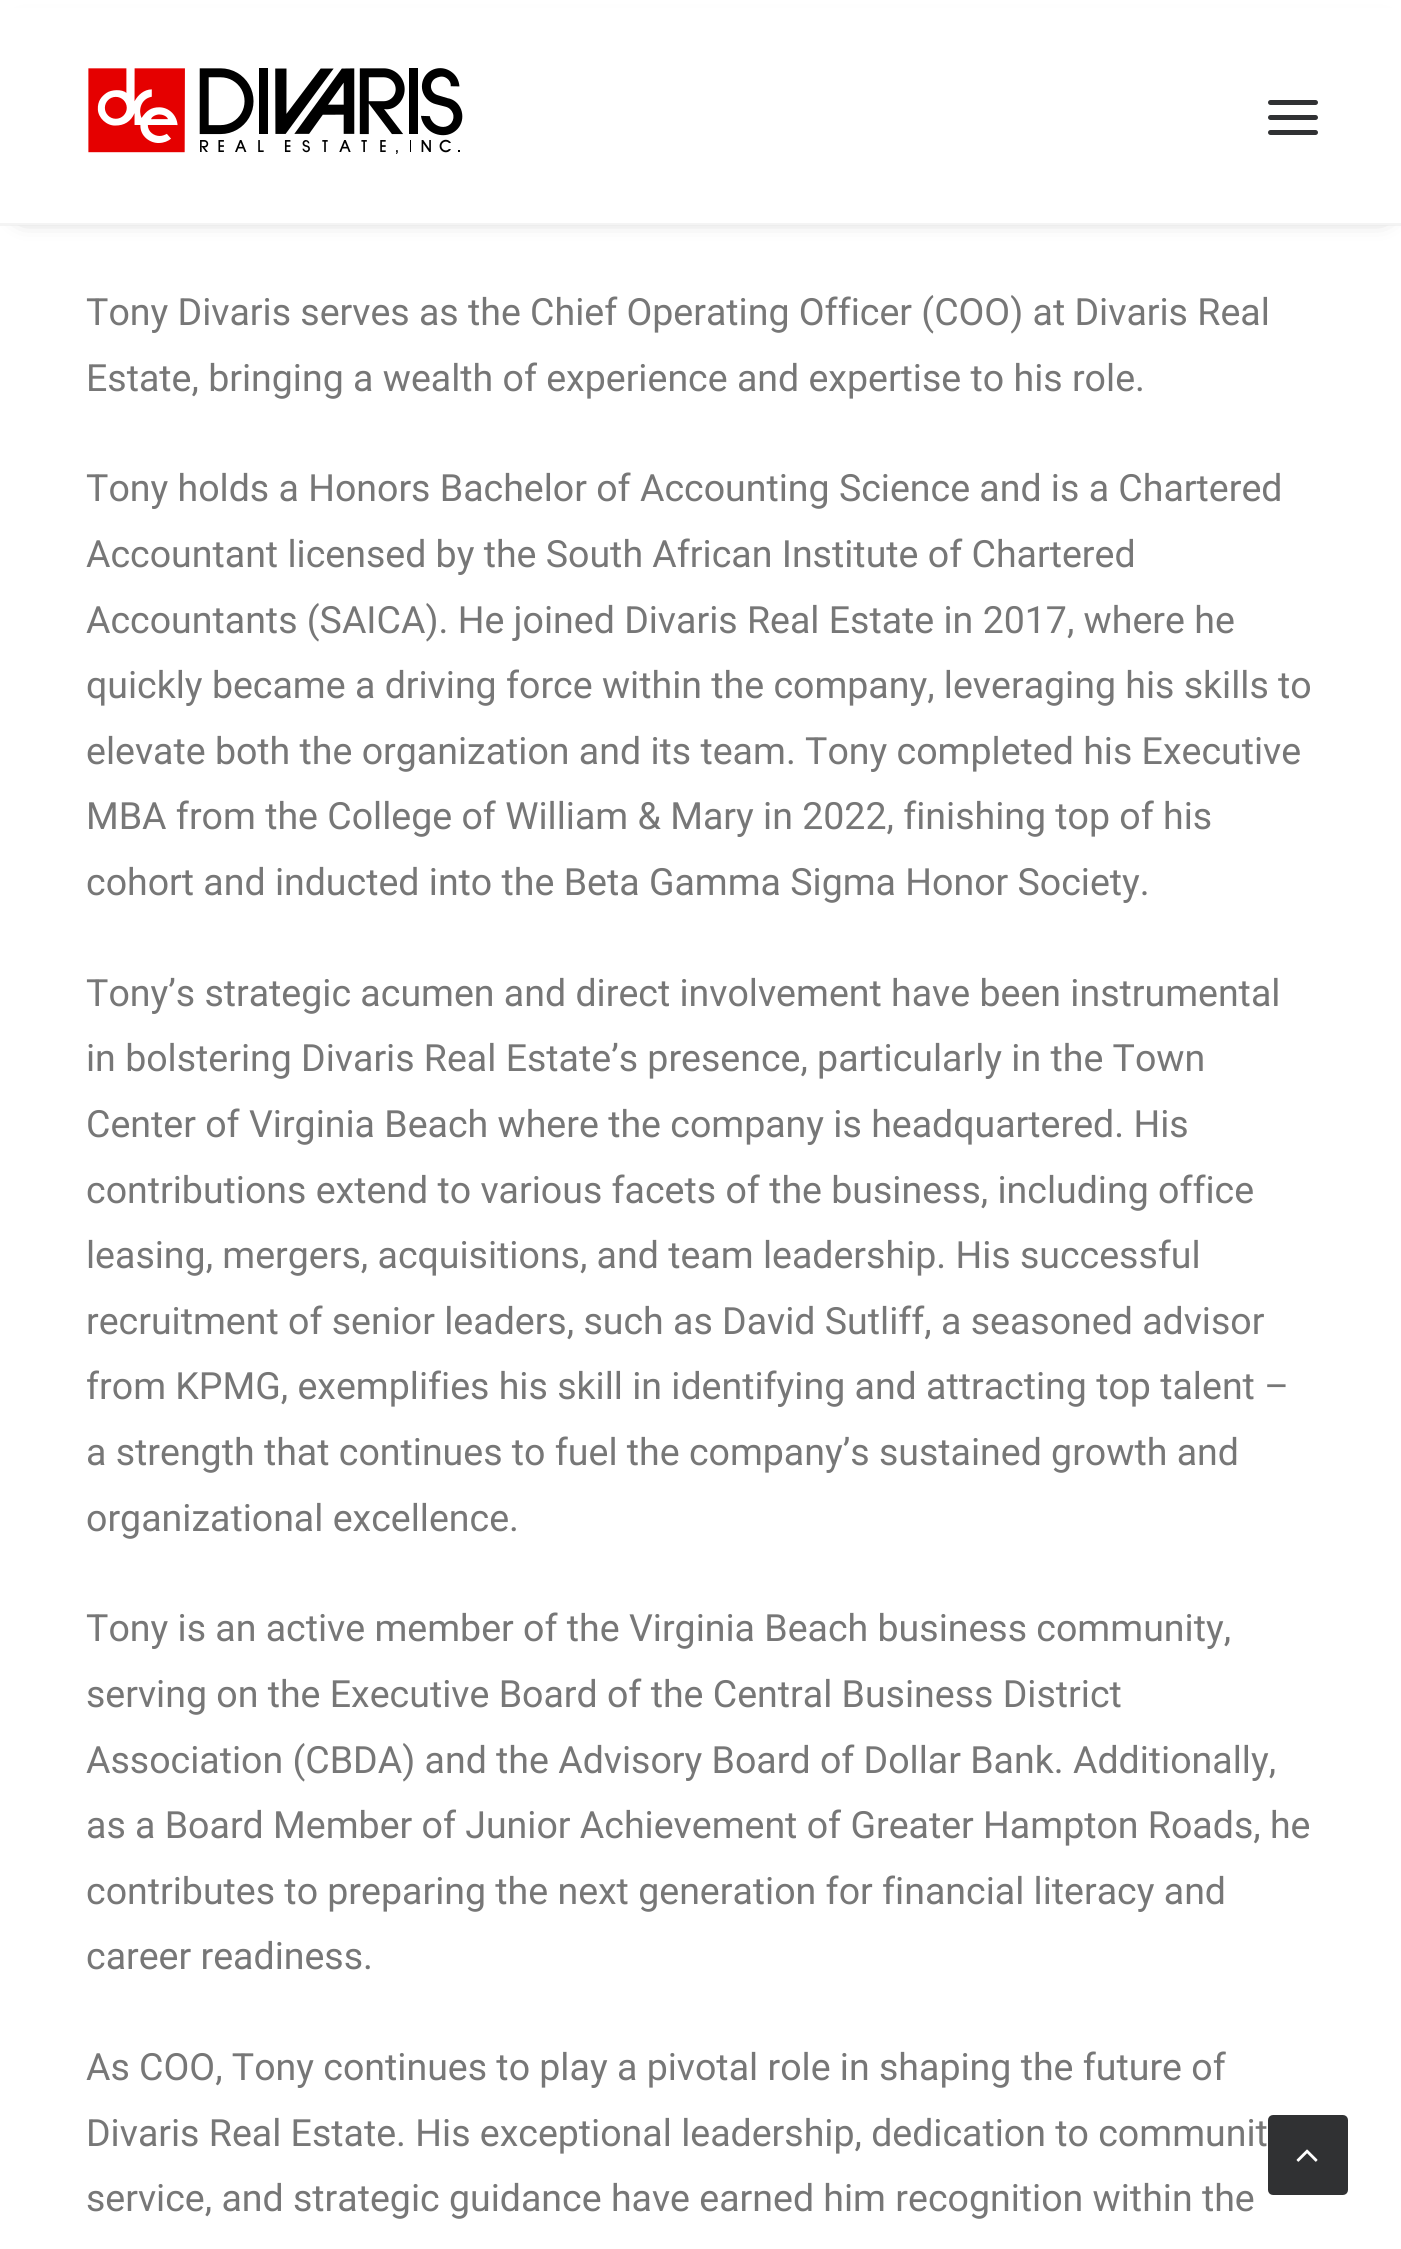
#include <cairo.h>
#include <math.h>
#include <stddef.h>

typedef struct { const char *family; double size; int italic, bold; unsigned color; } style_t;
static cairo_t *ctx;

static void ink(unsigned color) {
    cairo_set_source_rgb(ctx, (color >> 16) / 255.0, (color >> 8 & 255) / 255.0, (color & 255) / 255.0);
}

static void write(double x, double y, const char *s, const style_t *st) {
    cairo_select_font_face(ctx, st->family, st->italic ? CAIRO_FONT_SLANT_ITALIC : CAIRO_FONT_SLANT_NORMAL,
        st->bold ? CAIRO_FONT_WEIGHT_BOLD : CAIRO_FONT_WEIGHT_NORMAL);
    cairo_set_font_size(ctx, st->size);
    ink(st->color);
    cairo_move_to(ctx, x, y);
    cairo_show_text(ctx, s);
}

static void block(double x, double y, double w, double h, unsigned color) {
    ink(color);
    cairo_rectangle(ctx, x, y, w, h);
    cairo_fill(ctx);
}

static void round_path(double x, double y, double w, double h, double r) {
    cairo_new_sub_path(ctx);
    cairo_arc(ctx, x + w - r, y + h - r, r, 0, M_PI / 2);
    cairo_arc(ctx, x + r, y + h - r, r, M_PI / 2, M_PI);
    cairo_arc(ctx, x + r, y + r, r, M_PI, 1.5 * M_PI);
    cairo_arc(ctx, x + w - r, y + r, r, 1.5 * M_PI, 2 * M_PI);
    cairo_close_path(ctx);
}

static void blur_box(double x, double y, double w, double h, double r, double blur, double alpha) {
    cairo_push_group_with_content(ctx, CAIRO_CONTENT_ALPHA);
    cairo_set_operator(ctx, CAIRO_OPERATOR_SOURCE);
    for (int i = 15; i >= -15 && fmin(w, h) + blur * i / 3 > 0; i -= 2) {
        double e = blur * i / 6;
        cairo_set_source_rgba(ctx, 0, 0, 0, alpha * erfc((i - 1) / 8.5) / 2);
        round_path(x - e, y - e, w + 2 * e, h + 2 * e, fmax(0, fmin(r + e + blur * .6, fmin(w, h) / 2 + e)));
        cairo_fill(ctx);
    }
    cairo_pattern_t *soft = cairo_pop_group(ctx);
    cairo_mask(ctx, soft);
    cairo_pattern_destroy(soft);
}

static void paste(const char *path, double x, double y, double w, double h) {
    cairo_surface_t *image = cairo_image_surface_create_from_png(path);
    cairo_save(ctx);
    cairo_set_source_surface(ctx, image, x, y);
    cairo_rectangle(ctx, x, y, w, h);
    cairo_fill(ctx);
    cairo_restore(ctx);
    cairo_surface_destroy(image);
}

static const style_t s1 = {"Roboto", 37.5, 0, 0, 0x777777};

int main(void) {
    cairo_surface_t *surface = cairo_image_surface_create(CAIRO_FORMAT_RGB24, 1401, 2249);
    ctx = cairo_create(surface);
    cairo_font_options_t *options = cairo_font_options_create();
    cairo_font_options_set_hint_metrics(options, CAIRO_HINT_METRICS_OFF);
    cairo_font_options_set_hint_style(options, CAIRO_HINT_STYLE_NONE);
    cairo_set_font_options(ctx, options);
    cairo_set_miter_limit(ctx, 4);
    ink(0xffffff);
    cairo_paint(ctx);
    ink(0x000000);
    blur_box(23, 35, 1360, 175, 0, 12.5, 0.6);
    block(0, 8, 1401, 217, 0xffffff);
    cairo_set_source_rgba(ctx, 0.918, 0.918, 0.918, 0.5);
    cairo_rectangle(ctx, 0, 223, 1401, 3);
    cairo_fill(ctx);
    paste("pic1.png", 88, 68, 375, 86);
    ink(0x303133);
    round_path(1268, 115, 50, 5, 2.5);
    cairo_fill(ctx);
    round_path(1268, 100, 50, 5, 2.5);
    cairo_fill(ctx);
    round_path(1268, 130, 50, 5, 2.5);
    cairo_fill(ctx);
    write(86, 325, "Tony Divaris serves as the Chief Operating Officer (COO) at Divaris Real", &s1);
    write(86, 391, "Estate, bringing a wealth of experience and expertise to his role.", &s1);
    write(86, 501, "Tony holds a Honors Bachelor of Accounting Science and is a Chartered", &s1);
    write(86, 567, "Accountant licensed by the South African Institute of Chartered", &s1);
    write(86, 633, "Accountants (SAICA). He joined Divaris Real Estate in 2017, where he", &s1);
    write(86, 698, "quickly became a driving force within the company, leveraging his skills to", &s1);
    write(86, 764, "elevate both the organization and its team. Tony completed his Executive", &s1);
    write(86, 829, "MBA from the College of William & Mary in 2022, finishing top of his", &s1);
    write(86, 895, "cohort and inducted into the Beta Gamma Sigma Honor Society.", &s1);
    write(86, 1006, "Tony’s strategic acumen and direct involvement have been instrumental", &s1);
    write(86, 1071, "in bolstering Divaris Real Estate’s presence, particularly in the Town", &s1);
    write(86, 1137, "Center of Virginia Beach where the company is headquartered. His", &s1);
    write(86, 1203, "contributions extend to various facets of the business, including office", &s1);
    write(86, 1268, "leasing, mergers, acquisitions, and team leadership. His successful", &s1);
    write(86, 1334, "recruitment of senior leaders, such as David Sutliff, a seasoned advisor", &s1);
    write(86, 1399, "from KPMG, exemplifies his skill in identifying and attracting top talent –", &s1);
    write(86, 1465, "a strength that continues to fuel the company’s sustained growth and", &s1);
    write(86, 1531, "organizational excellence.", &s1);
    write(86, 1641, "Tony is an active member of the Virginia Beach business community,", &s1);
    write(86, 1707, "serving on the Executive Board of the Central Business District", &s1);
    write(86, 1773, "Association (CBDA) and the Advisory Board of Dollar Bank. Additionally,", &s1);
    write(86, 1838, "as a Board Member of Junior Achievement of Greater Hampton Roads, he", &s1);
    write(86, 1904, "contributes to preparing the next generation for financial literacy and", &s1);
    write(86, 1969, "career readiness.", &s1);
    write(86, 2080, "As COO, Tony continues to play a pivotal role in shaping the future of", &s1);
    write(86, 2146, "Divaris Real Estate. His exceptional leadership, dedication to communit", &s1);
    write(86, 2211, "service, and strategic guidance have earned him recognition within the", &s1);
    ink(0x303133);
    round_path(1269.5, 2116.5, 77, 77, 3.5);
    cairo_fill_preserve(ctx);
    cairo_set_line_width(ctx, 3);
    cairo_stroke(ctx);
    paste("pic2.png", 1296, 2149, 22, 13);
    cairo_surface_write_to_png(surface, "screenshot.png");
    cairo_font_options_destroy(options);
    cairo_destroy(ctx);
    cairo_surface_destroy(surface);
    return 0;
}
